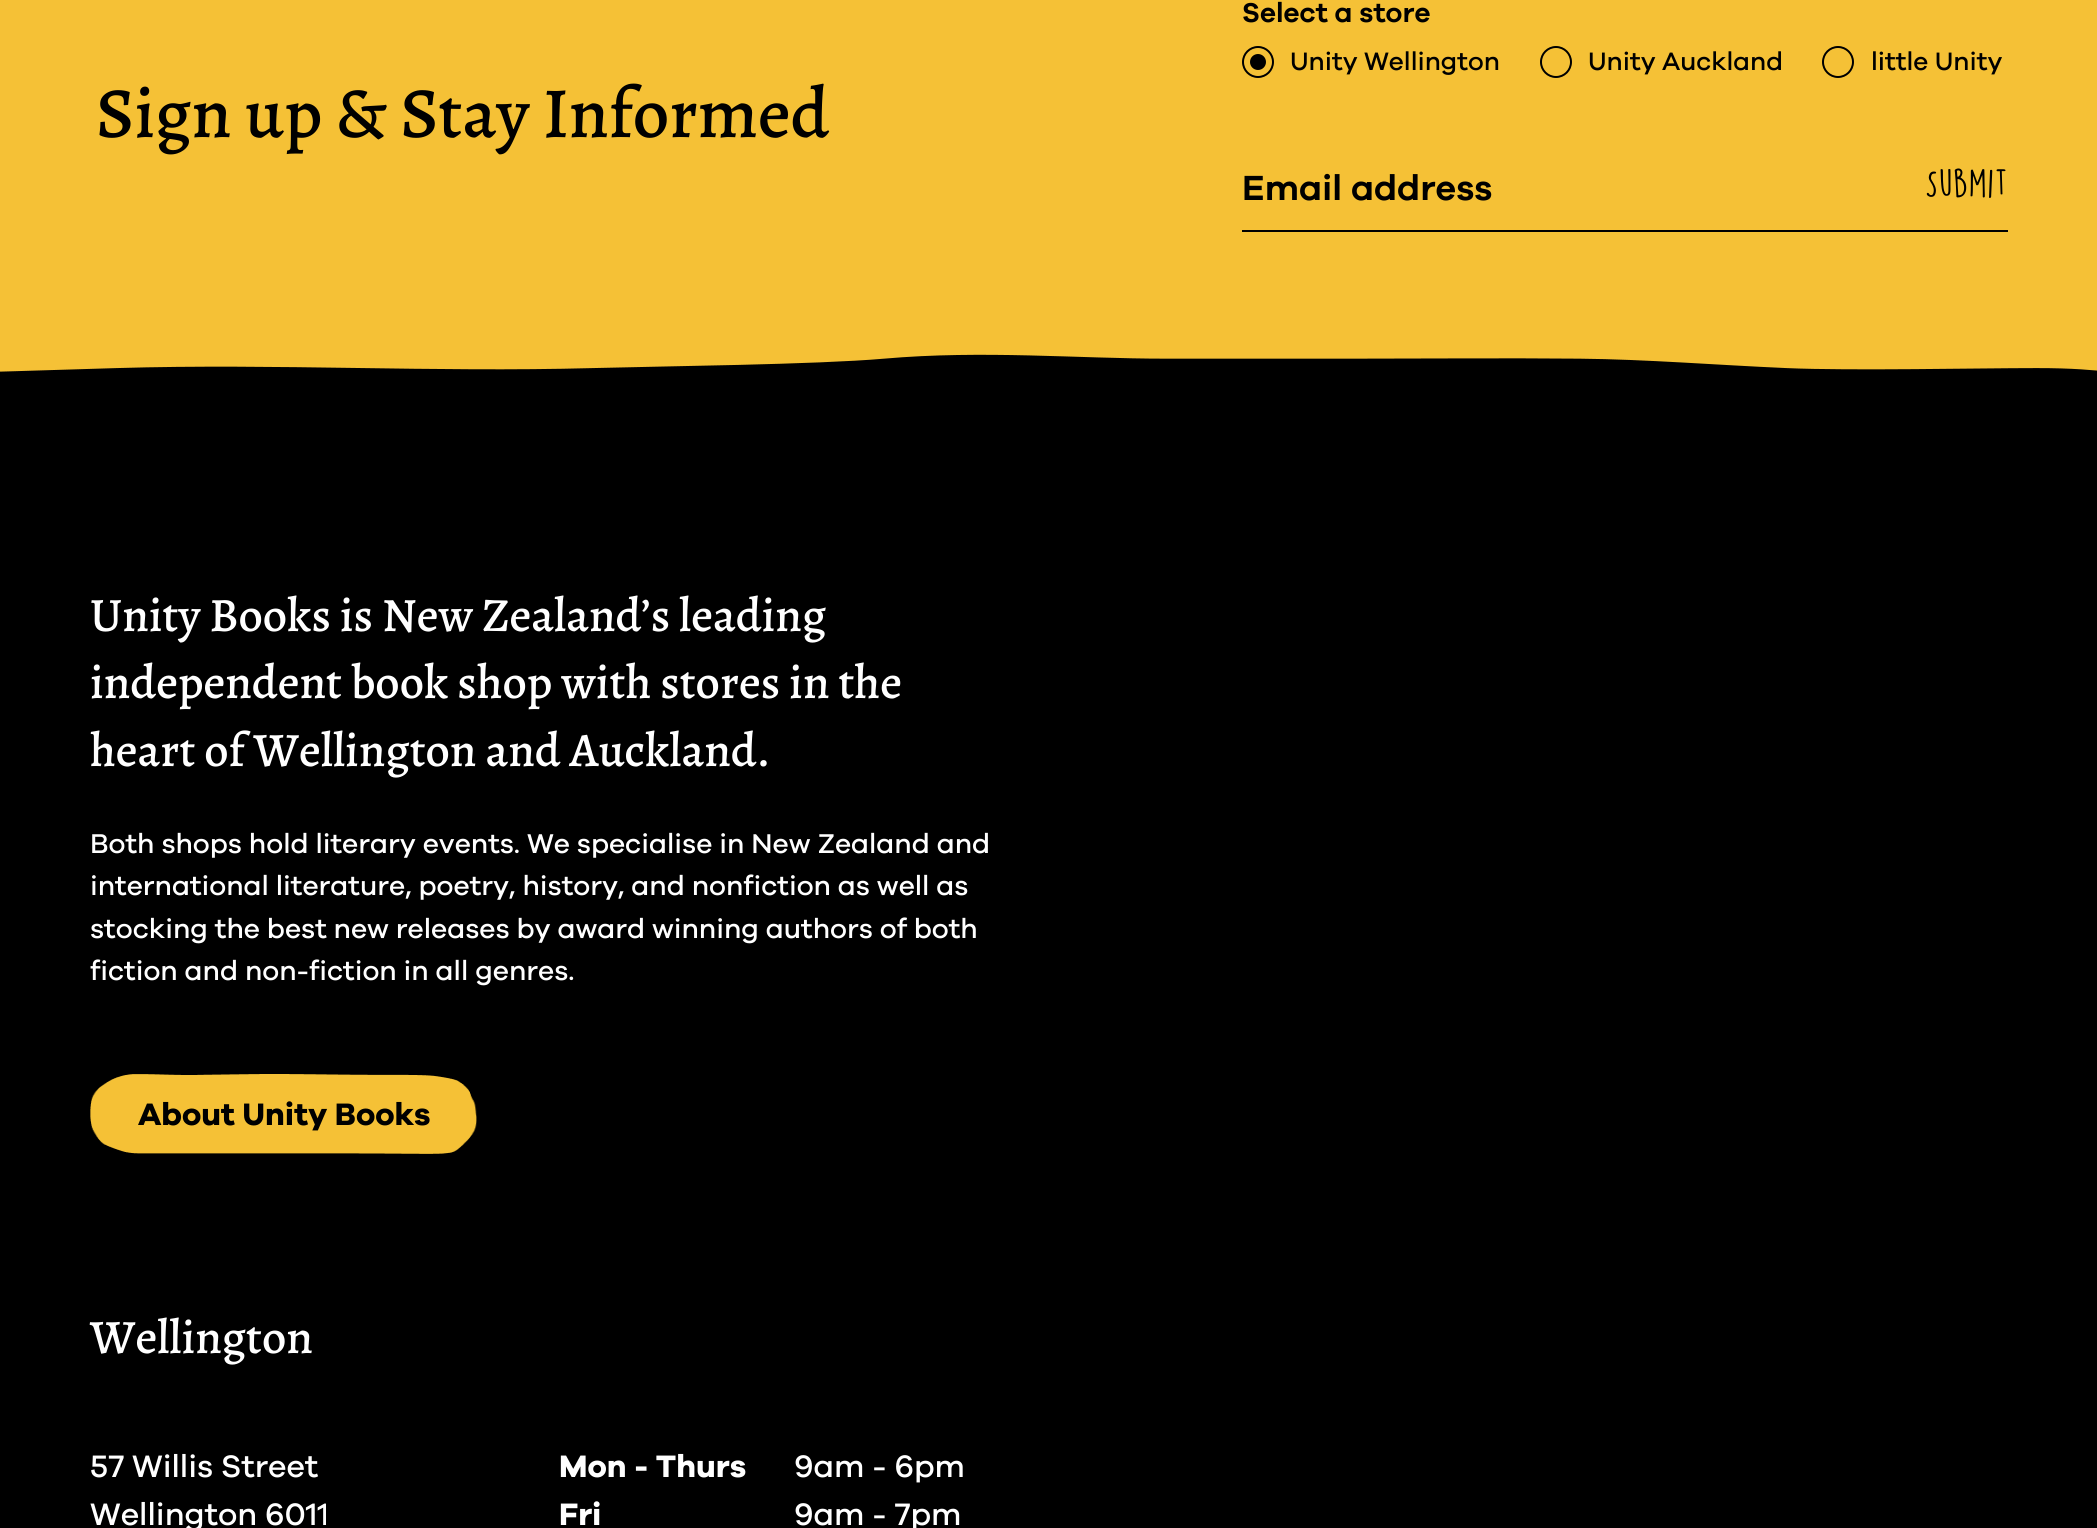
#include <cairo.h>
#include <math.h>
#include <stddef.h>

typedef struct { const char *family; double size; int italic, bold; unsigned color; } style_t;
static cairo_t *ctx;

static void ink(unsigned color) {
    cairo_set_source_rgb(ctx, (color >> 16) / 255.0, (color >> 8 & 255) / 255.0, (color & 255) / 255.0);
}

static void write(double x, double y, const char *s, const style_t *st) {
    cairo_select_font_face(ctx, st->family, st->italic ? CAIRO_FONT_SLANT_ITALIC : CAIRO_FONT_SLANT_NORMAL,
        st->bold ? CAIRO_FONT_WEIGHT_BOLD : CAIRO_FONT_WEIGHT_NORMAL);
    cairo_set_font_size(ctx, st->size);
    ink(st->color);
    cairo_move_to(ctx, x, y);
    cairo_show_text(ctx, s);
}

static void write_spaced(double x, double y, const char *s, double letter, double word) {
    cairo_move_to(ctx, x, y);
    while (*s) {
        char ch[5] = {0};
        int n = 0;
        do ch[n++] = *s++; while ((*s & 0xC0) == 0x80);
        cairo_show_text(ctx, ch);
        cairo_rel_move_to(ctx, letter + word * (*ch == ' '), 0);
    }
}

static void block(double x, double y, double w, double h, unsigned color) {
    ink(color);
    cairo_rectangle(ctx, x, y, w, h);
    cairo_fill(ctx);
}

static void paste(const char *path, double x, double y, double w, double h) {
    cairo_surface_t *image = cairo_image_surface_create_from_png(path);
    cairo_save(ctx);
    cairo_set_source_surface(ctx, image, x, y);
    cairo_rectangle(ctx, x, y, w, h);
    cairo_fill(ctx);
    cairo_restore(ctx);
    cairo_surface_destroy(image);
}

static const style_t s1 = {"Alegreya Medium", 72, 0, 0, 0x000000};
static const style_t s2 = {"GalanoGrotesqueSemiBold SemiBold", 28, 0, 0, 0x000000};
static const style_t s3 = {"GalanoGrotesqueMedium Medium", 26, 0, 0, 0x000000};
static const style_t s4 = {"GalanoGrotesqueSemiBold SemiBold", 36, 0, 0, 0x000000};
static const style_t s5 = {"Alegreya Medium", 48, 0, 0, 0xffffff};
static const style_t s6 = {"GalanoGrotesqueMedium Medium", 28, 0, 0, 0xffffff};
static const style_t s7 = {"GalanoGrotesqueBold", 32, 0, 1, 0x000000};
static const style_t s8 = {"GalanoGrotesqueMedium Medium", 32, 0, 0, 0xffffff};
static const style_t s9 = {"GalanoGrotesqueBold", 32, 0, 1, 0xffffff};

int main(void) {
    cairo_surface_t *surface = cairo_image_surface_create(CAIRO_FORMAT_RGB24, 2097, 1528);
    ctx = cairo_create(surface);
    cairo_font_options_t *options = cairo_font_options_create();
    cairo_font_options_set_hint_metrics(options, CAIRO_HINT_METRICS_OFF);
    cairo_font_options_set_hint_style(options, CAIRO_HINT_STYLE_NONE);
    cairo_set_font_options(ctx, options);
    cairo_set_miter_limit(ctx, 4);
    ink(0x000000);
    cairo_paint(ctx);
    paste("pic1.png", 0, 0, 2097, 372);
    write(96, 137, "Sign up & Stay Informed", &s1);
    block(1242, 230, 766, 2, 0x000000);
    write(1242, 22, "Select a store", &s2);
    cairo_new_path(ctx);
    cairo_arc(ctx, 1258, 62, 15, 0, 2 * M_PI);
    cairo_stroke(ctx);
    cairo_arc(ctx, 1258, 62, 8, 0, 2 * M_PI);
    cairo_fill(ctx);
    write(1290, 70, "Unity Wellington", &s3);
    cairo_new_path(ctx);
    cairo_arc(ctx, 1556, 62, 15, 0, 2 * M_PI);
    cairo_stroke(ctx);
    write(1588, 70, "Unity Auckland", &s3);
    cairo_new_path(ctx);
    cairo_arc(ctx, 1838, 62, 15, 0, 2 * M_PI);
    cairo_stroke(ctx);
    write(1871, 70, "little Unity", &s3);
    write(1242, 200, "Email address", &s4);
    cairo_select_font_face(ctx, "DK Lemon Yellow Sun", CAIRO_FONT_SLANT_NORMAL, CAIRO_FONT_WEIGHT_NORMAL);
    write_spaced(1925, 198, "Submit", 0.75, 0);
    write(90, 631, "Unity Books is New Zealand’s leading", &s5);
    write(90, 698, "independent book shop with stores in the", &s5);
    write(90, 766, "heart of Wellington and Auckland.", &s5);
    write(90, 853, "Both shops hold literary events. We specialise in New Zealand and", &s6);
    write(90, 895, "international literature, poetry, history, and nonfiction as well as", &s6);
    write(90, 938, "stocking the best new releases by award winning authors of both", &s6);
    write(90, 980, "fiction and non-fiction in all genres.", &s6);
    paste("pic2.png", 90, 1074, 387, 80);
    write(138, 1125, "About Unity Books", &s7);
    write(90, 1353, "Wellington", &s5);
    write(90, 1477, "57 Willis Street", &s8);
    write(90, 1525, "Wellington 6011", &s8);
    write(559, 1477, "Mon - Thurs", &s9);
    write(794, 1477, "9am - 6pm", &s8);
    write(559, 1525, "Fri", &s9);
    write(794, 1525, "9am - 7pm", &s8);
    cairo_surface_write_to_png(surface, "screenshot.png");
    cairo_font_options_destroy(options);
    cairo_destroy(ctx);
    cairo_surface_destroy(surface);
    return 0;
}
